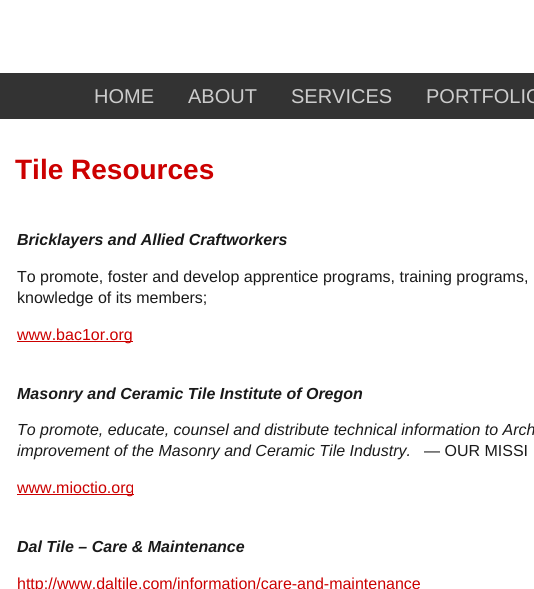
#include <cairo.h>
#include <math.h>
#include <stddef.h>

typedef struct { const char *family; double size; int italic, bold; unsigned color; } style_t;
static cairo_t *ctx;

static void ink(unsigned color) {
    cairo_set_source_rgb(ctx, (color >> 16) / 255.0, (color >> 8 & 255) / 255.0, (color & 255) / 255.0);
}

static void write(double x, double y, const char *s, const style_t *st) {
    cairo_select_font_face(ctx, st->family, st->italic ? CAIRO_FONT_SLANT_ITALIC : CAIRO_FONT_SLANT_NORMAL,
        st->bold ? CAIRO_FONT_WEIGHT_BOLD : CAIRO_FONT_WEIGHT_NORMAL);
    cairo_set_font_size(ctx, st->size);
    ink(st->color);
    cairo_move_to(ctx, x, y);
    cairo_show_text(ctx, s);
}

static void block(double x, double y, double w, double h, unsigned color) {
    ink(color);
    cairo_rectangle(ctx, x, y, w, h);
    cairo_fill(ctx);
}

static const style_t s1 = {"Liberation Sans", 20, 0, 0, 0xcccccc};
static const style_t s2 = {"Liberation Sans", 28, 0, 1, 0xcc0000};
static const style_t s3 = {"Liberation Sans", 16, 1, 1, 0x1a1a1a};
static const style_t s4 = {"Liberation Sans", 16, 0, 0, 0x1a1a1a};
static const style_t s5 = {"Liberation Sans", 16, 0, 0, 0xcc0000};
static const style_t s6 = {"Liberation Sans", 16, 1, 0, 0x1a1a1a};

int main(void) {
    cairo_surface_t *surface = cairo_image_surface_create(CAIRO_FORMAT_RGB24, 534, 589);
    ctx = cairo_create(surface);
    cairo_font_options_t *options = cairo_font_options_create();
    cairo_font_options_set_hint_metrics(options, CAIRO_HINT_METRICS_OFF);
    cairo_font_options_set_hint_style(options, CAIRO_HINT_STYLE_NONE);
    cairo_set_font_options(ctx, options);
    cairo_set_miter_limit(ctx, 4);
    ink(0x333333);
    cairo_paint(ctx);
    block(0, 0, 534, 73, 0xffffff);
    write(94, 103, "HOME", &s1);
    write(188, 103, "ABOUT", &s1);
    write(291, 103, "SERVICES", &s1);
    write(426, 103, "PORTFOLIO", &s1);
    block(0, 119, 534, 470, 0xffffff);
    write(15, 179, "Tile Resources", &s2);
    write(17, 245, "Bricklayers and Allied Craftworkers", &s3);
    write(17, 282, "To promote, foster and develop apprentice programs, training programs,", &s4);
    write(17, 303, "knowledge of its members;", &s4);
    block(17, 341, 116, 1, 0xcc0000);
    write(17, 340, "www.bac1or.org", &s5);
    write(17, 399, "Masonry and Ceramic Tile Institute of Oregon", &s3);
    write(17, 435, "To promote, educate, counsel and distribute technical information to Arch", &s6);
    write(17, 456, "improvement of the Masonry and Ceramic Tile Industry.", &s6);
    write(424, 456, "— OUR MISSI", &s4);
    block(17, 494, 117, 1, 0xcc0000);
    write(17, 493, "www.mioctio.org", &s5);
    write(17, 552, "Dal Tile – Care & Maintenance", &s3);
    write(17, 589, "http://www.daltile.com/information/care-and-maintenance", &s5);
    cairo_surface_write_to_png(surface, "screenshot.png");
    cairo_font_options_destroy(options);
    cairo_destroy(ctx);
    cairo_surface_destroy(surface);
    return 0;
}
